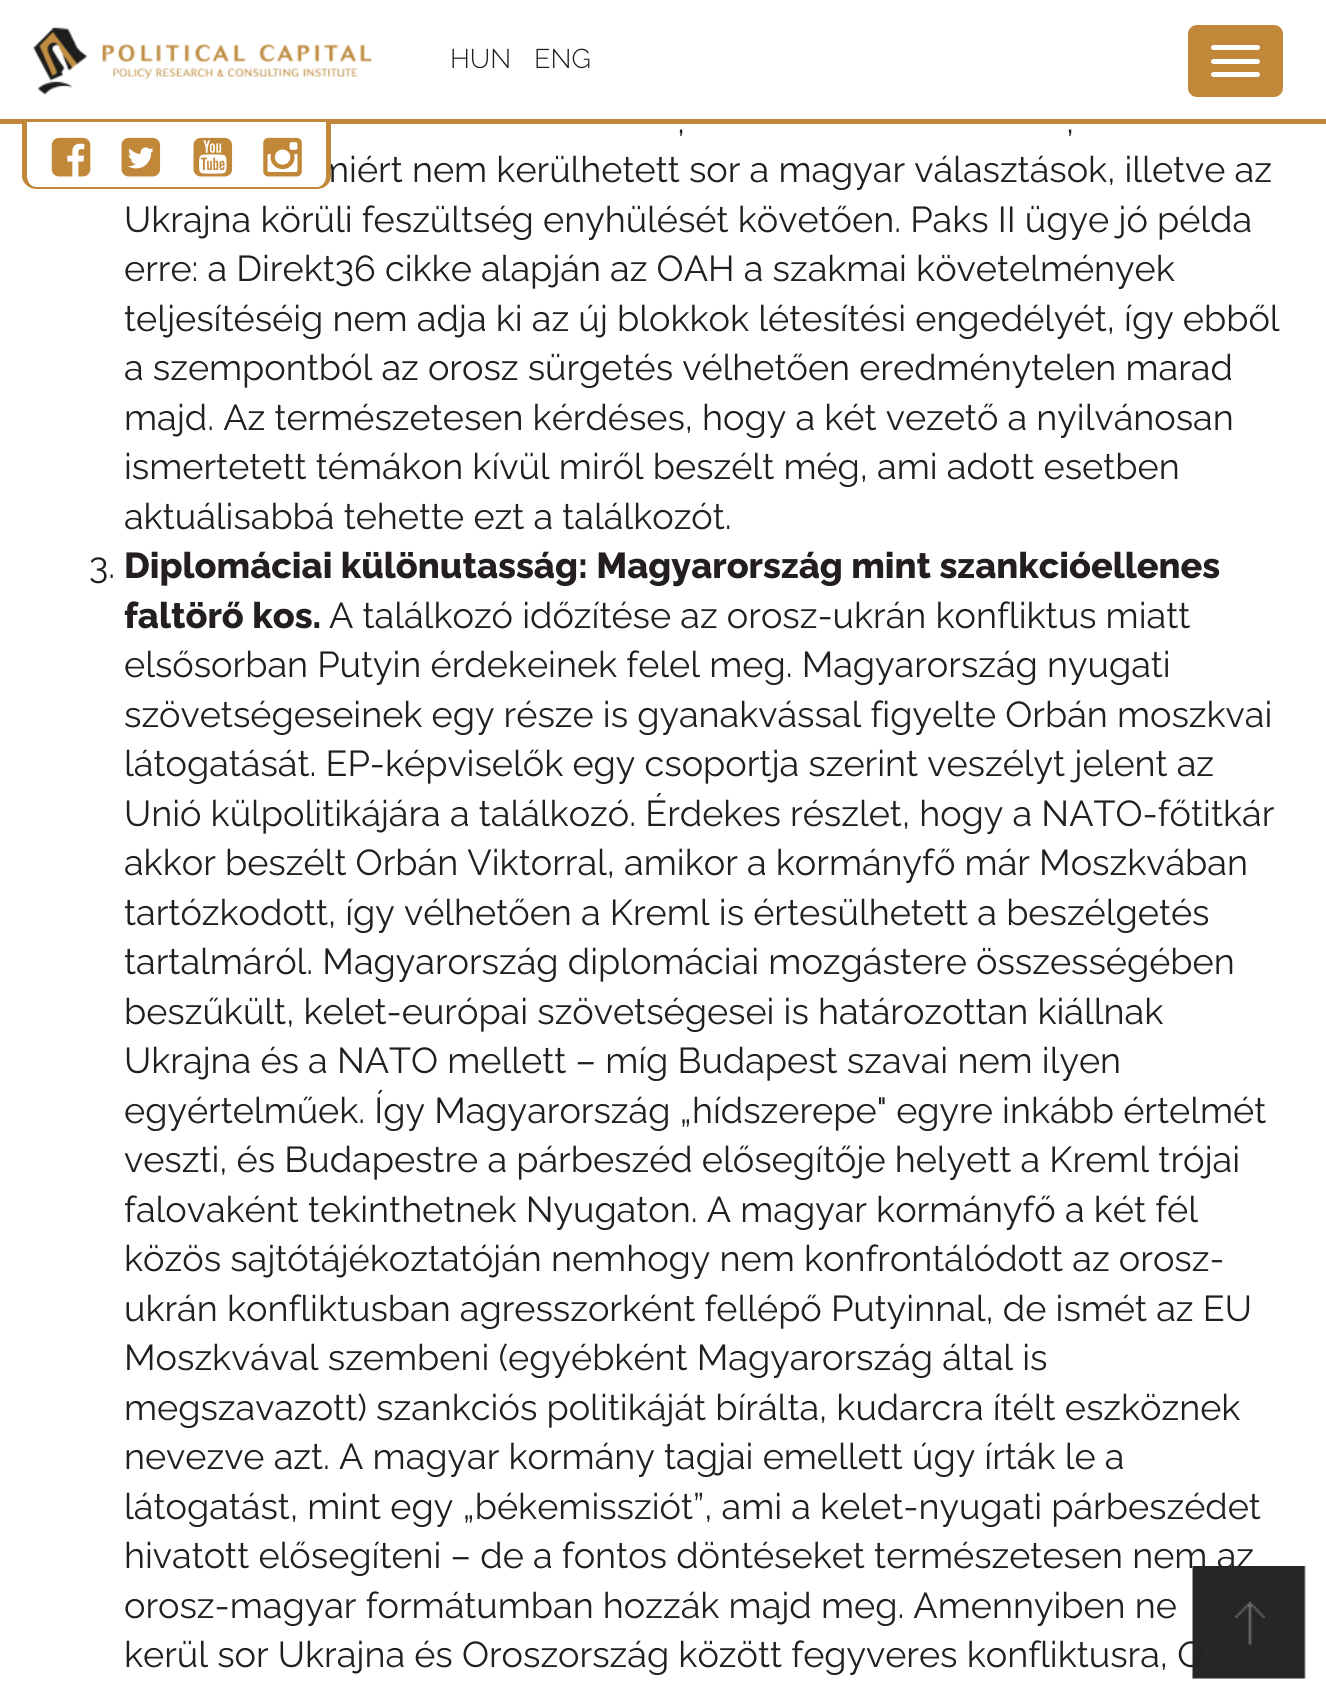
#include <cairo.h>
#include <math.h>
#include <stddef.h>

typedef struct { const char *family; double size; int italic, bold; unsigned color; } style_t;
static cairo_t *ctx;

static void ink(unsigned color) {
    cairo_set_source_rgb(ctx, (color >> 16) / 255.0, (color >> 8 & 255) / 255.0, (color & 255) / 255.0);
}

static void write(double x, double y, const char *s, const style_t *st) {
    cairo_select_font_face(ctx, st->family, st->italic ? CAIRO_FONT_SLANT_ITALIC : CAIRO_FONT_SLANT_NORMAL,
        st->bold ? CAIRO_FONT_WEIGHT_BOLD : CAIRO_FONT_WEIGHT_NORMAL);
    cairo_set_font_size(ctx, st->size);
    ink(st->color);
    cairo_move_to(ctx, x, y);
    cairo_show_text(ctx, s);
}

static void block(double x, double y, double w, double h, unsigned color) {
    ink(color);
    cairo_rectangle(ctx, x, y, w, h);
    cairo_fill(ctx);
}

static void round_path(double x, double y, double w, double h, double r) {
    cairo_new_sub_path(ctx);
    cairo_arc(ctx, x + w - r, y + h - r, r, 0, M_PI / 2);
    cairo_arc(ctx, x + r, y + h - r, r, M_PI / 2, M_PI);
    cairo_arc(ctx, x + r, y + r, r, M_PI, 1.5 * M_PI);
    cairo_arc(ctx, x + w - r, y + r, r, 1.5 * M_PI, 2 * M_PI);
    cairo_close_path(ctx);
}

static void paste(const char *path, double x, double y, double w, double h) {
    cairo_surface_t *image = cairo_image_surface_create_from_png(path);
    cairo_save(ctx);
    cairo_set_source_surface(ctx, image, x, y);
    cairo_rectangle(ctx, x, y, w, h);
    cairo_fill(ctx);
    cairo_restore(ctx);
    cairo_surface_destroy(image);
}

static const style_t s1 = {"Raleway Light", 27, 0, 0, 0x231f20};
static const style_t s2 = {"Raleway", 36, 0, 0, 0x231f20};
static const style_t s3 = {"Raleway ExtraBold", 36, 0, 0, 0x231f20};

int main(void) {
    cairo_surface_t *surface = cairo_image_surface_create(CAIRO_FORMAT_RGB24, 1326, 1700);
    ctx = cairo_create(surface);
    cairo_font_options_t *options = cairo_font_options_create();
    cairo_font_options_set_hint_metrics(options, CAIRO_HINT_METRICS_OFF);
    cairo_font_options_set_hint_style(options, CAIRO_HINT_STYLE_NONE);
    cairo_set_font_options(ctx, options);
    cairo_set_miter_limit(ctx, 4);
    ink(0xffffff);
    cairo_paint(ctx);
    block(0, 119, 1326, 5, 0xc1883a);
    paste("pic1.png", 33, 27, 339, 68);
    write(450, 68, "HUN", &s1);
    write(534, 68, "ENG", &s1);
    ink(0xc1883a);
    round_path(1188, 25, 95, 72, 9);
    cairo_fill(ctx);
    ink(0xffffff);
    round_path(1211, 45, 49, 5, 2.5);
    cairo_fill(ctx);
    round_path(1211, 59, 49, 5, 2.5);
    cairo_fill(ctx);
    round_path(1211, 72, 49, 5, 2.5);
    cairo_fill(ctx);
    write(316, 182, "miért nem kerülhetett sor a magyar választások, illetve az", &s2);
    ink(0xffffff);
    cairo_new_path(ctx);
    cairo_move_to(ctx, 27, 122);
    cairo_line_to(ctx, 326, 122);
    cairo_line_to(ctx, 326, 176);
    cairo_curve_to(ctx, 326, 182, 322, 187, 317, 187);
    cairo_line_to(ctx, 36, 187);
    cairo_curve_to(ctx, 31, 187, 27, 182, 27, 176);
    cairo_close_path(ctx);
    cairo_fill(ctx);
    ink(0xc1883a);
    cairo_set_fill_rule(ctx, CAIRO_FILL_RULE_EVEN_ODD);
    cairo_new_path(ctx);
    cairo_move_to(ctx, 22, 122);
    cairo_line_to(ctx, 331, 122);
    cairo_line_to(ctx, 331, 176);
    cairo_curve_to(ctx, 331, 183, 325, 189, 317, 189);
    cairo_line_to(ctx, 36, 189);
    cairo_curve_to(ctx, 29, 189, 22, 183, 22, 176);
    cairo_close_path(ctx);
    cairo_move_to(ctx, 27, 122);
    cairo_line_to(ctx, 326, 122);
    cairo_line_to(ctx, 326, 176);
    cairo_curve_to(ctx, 326, 182, 322, 187, 317, 187);
    cairo_line_to(ctx, 36, 187);
    cairo_curve_to(ctx, 31, 187, 27, 182, 27, 176);
    cairo_close_path(ctx);
    cairo_fill(ctx);
    paste("pic2.png", 51, 137, 40, 40);
    paste("pic3.png", 121, 137, 40, 40);
    paste("pic4.png", 193, 137, 40, 40);
    paste("pic5.png", 263, 137, 39, 40);
    write(677, 133, ",", &s2);
    write(1066, 133, ",", &s2);
    write(124, 232, "Ukrajna körüli feszültség enyhülését követően. Paks II ügye jó példa", &s2);
    write(124, 281, "erre: a Direkt36 cikke alapján az OAH a szakmai követelmények", &s2);
    write(124, 331, "teljesítéséig nem adja ki az új blokkok létesítési engedélyét, így ebből", &s2);
    write(124, 380, "a szempontból az orosz sürgetés vélhetően eredménytelen marad", &s2);
    write(124, 430, "majd. Az természetesen kérdéses, hogy a két vezető a nyilvánosan", &s2);
    write(124, 479, "ismertetett témákon kívül miről beszélt még, ami adott esetben", &s2);
    write(124, 529, "aktuálisabbá tehette ezt a találkozót.", &s2);
    write(89, 578, "3.", &s2);
    write(124, 578, "Diplomáciai különutasság: Magyarország mint szankcióellenes", &s3);
    write(124, 628, "faltörő kos.", &s3);
    write(329, 628, "A találkozó időzítése az orosz-ukrán konfliktus miatt", &s2);
    write(124, 677, "elsősorban Putyin érdekeinek felel meg. Magyarország nyugati", &s2);
    write(124, 727, "szövetségeseinek egy része is gyanakvással figyelte Orbán moszkvai", &s2);
    write(124, 776, "látogatását. EP-képviselők egy csoportja szerint veszélyt jelent az", &s2);
    write(124, 826, "Unió külpolitikájára a találkozó. Érdekes részlet, hogy a NATO-főtitkár", &s2);
    write(124, 875, "akkor beszélt Orbán Viktorral, amikor a kormányfő már Moszkvában", &s2);
    write(124, 925, "tartózkodott, így vélhetően a Kreml is értesülhetett a beszélgetés", &s2);
    write(124, 974, "tartalmáról. Magyarország diplomáciai mozgástere összességében", &s2);
    write(124, 1024, "beszűkült, kelet-európai szövetségesei is határozottan kiállnak", &s2);
    write(124, 1073, "Ukrajna és a NATO mellett – míg Budapest szavai nem ilyen", &s2);
    write(124, 1123, "egyértelműek. Így Magyarország „hídszerepe\" egyre inkább értelmét", &s2);
    write(124, 1172, "veszti, és Budapestre a párbeszéd elősegítője helyett a Kreml trójai", &s2);
    write(124, 1222, "falovaként tekinthetnek Nyugaton. A magyar kormányfő a két fél", &s2);
    write(124, 1271, "közös sajtótájékoztatóján nemhogy nem konfrontálódott az orosz-", &s2);
    write(124, 1321, "ukrán konfliktusban agresszorként fellépő Putyinnal, de ismét az EU", &s2);
    write(124, 1370, "Moszkvával szembeni (egyébként Magyarország által is", &s2);
    write(124, 1420, "megszavazott) szankciós politikáját bírálta, kudarcra ítélt eszköznek", &s2);
    write(124, 1469, "nevezve azt. A magyar kormány tagjai emellett úgy írták le a", &s2);
    write(124, 1519, "látogatást, mint egy „békemissziót”, ami a kelet-nyugati párbeszédet", &s2);
    write(124, 1568, "hivatott elősegíteni – de a fontos döntéseket természetesen nem az", &s2);
    write(124, 1618, "orosz-magyar formátumban hozzák majd meg. Amennyiben ne", &s2);
    write(124, 1667, "kerül sor Ukrajna és Oroszország között fegyveres konfliktusra, O", &s2);
    paste("pic6.png", 1192, 1566, 114, 113);
    cairo_surface_write_to_png(surface, "screenshot.png");
    cairo_font_options_destroy(options);
    cairo_destroy(ctx);
    cairo_surface_destroy(surface);
    return 0;
}
